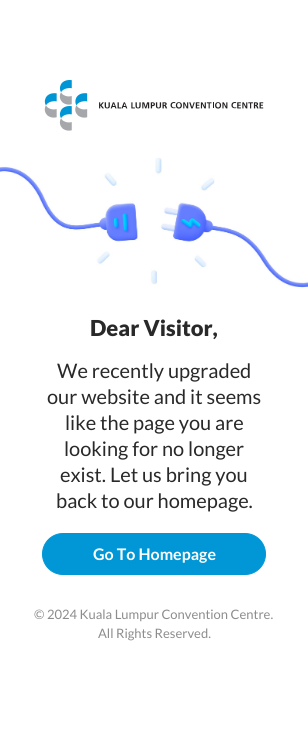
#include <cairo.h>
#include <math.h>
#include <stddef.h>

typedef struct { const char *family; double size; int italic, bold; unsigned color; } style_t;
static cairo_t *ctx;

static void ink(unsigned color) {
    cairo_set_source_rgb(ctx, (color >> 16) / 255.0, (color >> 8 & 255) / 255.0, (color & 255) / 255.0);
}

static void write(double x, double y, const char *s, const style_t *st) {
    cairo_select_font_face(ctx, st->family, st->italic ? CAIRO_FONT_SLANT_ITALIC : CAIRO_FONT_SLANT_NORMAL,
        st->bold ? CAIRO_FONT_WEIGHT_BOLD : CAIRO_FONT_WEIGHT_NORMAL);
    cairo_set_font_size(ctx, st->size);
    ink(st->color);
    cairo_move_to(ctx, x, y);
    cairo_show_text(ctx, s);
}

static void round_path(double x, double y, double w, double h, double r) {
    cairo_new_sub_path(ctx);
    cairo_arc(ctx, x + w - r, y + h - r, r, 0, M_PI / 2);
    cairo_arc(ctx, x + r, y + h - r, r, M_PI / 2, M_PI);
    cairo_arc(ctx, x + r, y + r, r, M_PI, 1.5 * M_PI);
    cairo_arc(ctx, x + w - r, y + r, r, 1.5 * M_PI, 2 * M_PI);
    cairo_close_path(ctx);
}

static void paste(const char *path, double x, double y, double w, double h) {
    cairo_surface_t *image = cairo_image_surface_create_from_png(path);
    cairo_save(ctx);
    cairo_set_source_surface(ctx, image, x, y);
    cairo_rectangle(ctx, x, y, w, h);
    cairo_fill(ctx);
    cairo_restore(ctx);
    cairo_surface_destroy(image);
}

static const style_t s1 = {"Lato Black", 22, 0, 0, 0x292929};
static const style_t s2 = {"Lato", 20, 0, 0, 0x292929};
static const style_t s3 = {"Lato", 16, 0, 1, 0xffffff};
static const style_t s4 = {"Lato", 13, 0, 0, 0x8c8c8c};

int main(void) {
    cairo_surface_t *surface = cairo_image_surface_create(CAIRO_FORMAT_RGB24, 308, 730);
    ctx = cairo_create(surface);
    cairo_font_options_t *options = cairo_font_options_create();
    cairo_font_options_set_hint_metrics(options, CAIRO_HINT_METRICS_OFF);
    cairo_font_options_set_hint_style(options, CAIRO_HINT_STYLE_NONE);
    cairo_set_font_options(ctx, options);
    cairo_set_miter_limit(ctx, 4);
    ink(0xffffff);
    cairo_paint(ctx);
    paste("pic1.png", 44, 80, 220, 51);
    paste("pic2.png", 0, 157, 308, 131);
    write(90, 336, "Dear Visitor,", &s1);
    write(57, 378, "We recently upgraded", &s2);
    write(47, 404, "our website and it seems", &s2);
    write(65, 430, "like the page you are", &s2);
    write(64, 456, "looking for no longer", &s2);
    write(60, 482, "exist. Let us bring you", &s2);
    write(56, 508, "back to our homepage.", &s2);
    ink(0x0197d6);
    round_path(42.5, 533.5, 223, 41, 20.5);
    cairo_fill_preserve(ctx);
    cairo_set_line_width(ctx, 1);
    cairo_stroke(ctx);
    write(93, 560, "Go To Homepage", &s3);
    write(34, 619, "© 2024 Kuala Lumpur Convention Centre.", &s4);
    write(98, 638, "All Rights Reserved.", &s4);
    cairo_surface_write_to_png(surface, "screenshot.png");
    cairo_font_options_destroy(options);
    cairo_destroy(ctx);
    cairo_surface_destroy(surface);
    return 0;
}
